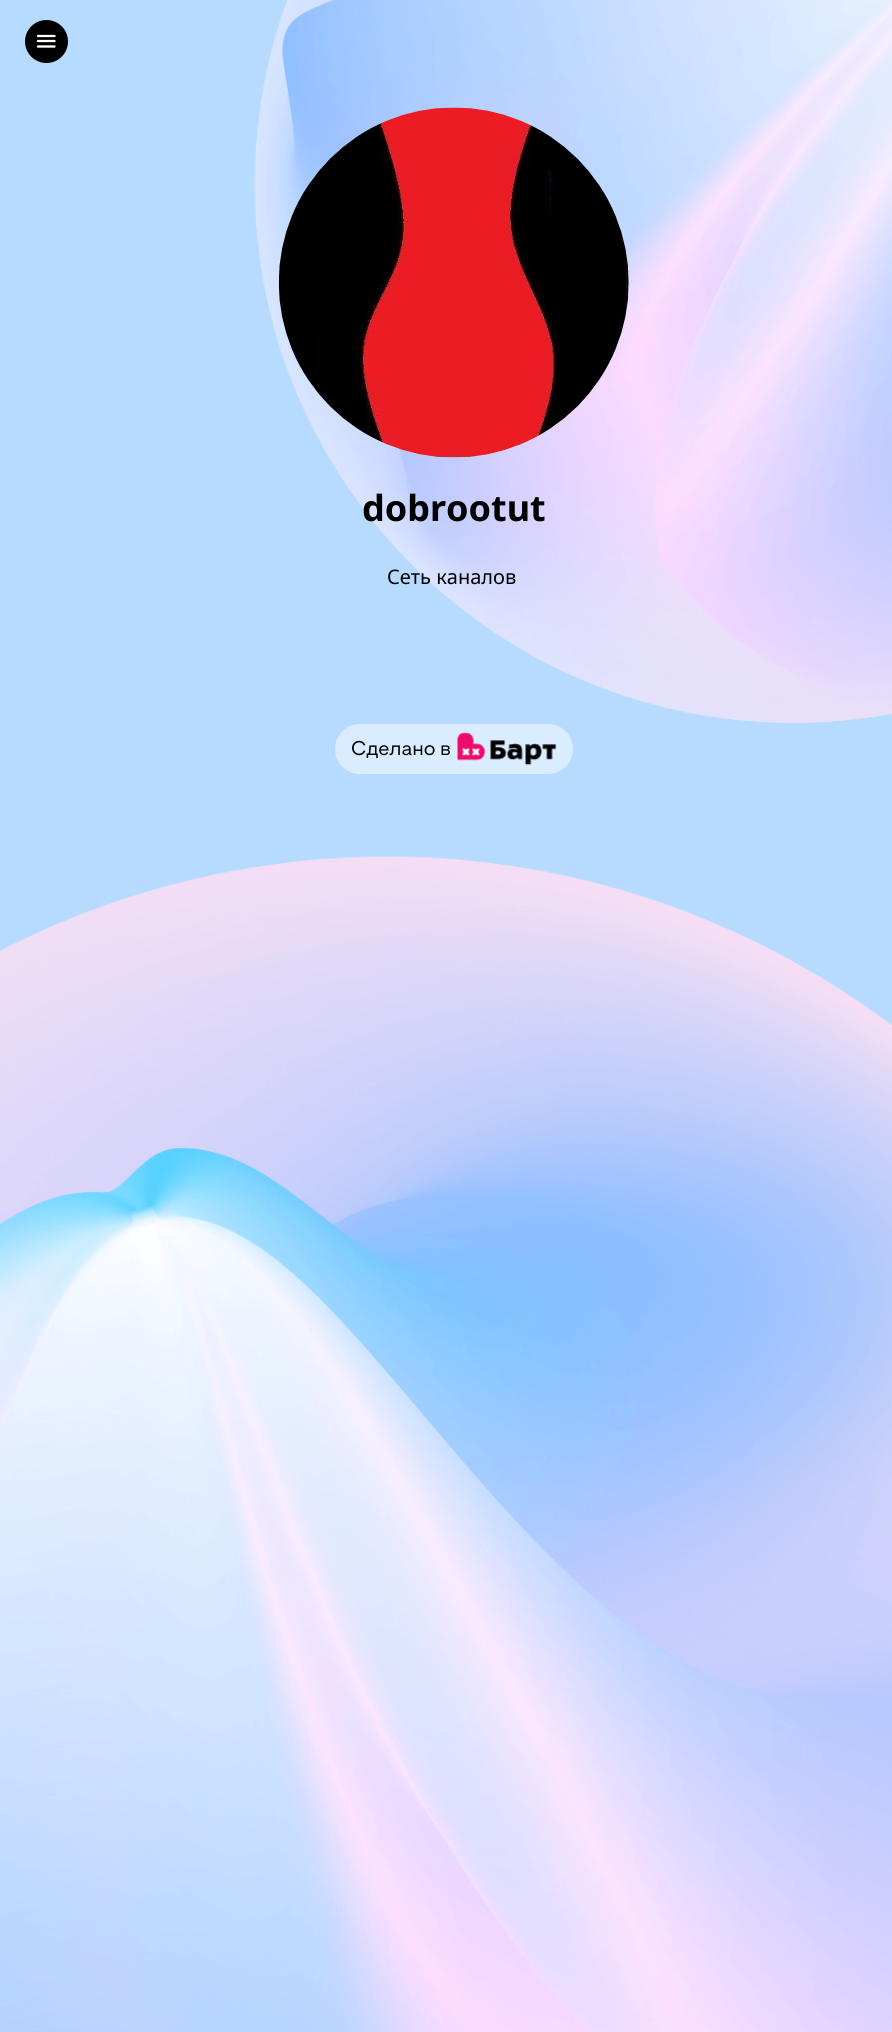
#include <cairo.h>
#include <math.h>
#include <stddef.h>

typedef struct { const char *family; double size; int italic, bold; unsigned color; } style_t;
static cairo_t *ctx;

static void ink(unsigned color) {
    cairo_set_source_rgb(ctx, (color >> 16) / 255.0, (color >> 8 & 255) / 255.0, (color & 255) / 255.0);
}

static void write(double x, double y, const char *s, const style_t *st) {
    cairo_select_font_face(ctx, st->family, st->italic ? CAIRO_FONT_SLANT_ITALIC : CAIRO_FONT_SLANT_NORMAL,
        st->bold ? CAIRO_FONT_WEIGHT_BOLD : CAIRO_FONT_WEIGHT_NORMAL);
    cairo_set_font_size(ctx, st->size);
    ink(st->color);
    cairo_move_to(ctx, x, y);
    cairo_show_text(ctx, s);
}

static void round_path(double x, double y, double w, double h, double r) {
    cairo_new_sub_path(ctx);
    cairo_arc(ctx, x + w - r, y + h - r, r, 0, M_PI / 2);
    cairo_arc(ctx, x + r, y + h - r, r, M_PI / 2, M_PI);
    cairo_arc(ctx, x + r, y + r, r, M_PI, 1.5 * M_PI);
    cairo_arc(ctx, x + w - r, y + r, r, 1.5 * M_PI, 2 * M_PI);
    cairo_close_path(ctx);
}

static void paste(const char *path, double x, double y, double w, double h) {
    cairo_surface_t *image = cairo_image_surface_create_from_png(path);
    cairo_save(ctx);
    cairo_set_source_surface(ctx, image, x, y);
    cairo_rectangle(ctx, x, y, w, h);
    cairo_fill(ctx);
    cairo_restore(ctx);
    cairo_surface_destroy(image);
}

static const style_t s1 = {"Noto Sans", 36, 0, 1, 0x000000};
static const style_t s2 = {"Noto Sans", 20, 0, 0, 0x000000};
static const style_t s3 = {"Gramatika", 20, 0, 0, 0x000000};

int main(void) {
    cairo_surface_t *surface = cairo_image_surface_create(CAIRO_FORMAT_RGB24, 892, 2032);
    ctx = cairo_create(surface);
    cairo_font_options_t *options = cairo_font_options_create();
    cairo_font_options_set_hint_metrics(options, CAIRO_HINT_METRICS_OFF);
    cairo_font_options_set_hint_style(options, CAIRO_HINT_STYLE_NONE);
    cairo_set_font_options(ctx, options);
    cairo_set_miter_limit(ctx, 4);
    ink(0xb7dbff);
    cairo_paint(ctx);
    paste("pic1.png", 0, 0, 892, 2032);
    ink(0x000000);
    cairo_arc(ctx, 46.5, 41.5, 21.5, 0, 2 * M_PI);
    cairo_fill(ctx);
    cairo_new_path(ctx);
    cairo_move_to(ctx, 38, 36);
    cairo_line_to(ctx, 54.5, 36);
    cairo_move_to(ctx, 38, 41);
    cairo_line_to(ctx, 54.5, 41);
    cairo_move_to(ctx, 38, 46.5);
    cairo_line_to(ctx, 54.5, 46.5);
    ink(0xffffff);
    cairo_set_line_width(ctx, 2.3);
    cairo_set_line_cap(ctx, CAIRO_LINE_CAP_ROUND);
    cairo_stroke(ctx);
    cairo_set_source_rgba(ctx, 1, 1, 1, 0.24);
    cairo_arc(ctx, 454, 283, 175, 0, 2 * M_PI);
    cairo_fill(ctx);
    paste("pic2.png", 278, 107, 351, 351);
    write(362, 521, "dobrootut", &s1);
    write(387, 584, "Сеть каналов", &s2);
    ink(0xdaecff);
    round_path(335, 724, 238, 50, 25);
    cairo_fill(ctx);
    write(351, 755, "Сделано в", &s3);
    paste("pic3.png", 457, 732, 100, 33);
    cairo_surface_write_to_png(surface, "screenshot.png");
    cairo_font_options_destroy(options);
    cairo_destroy(ctx);
    cairo_surface_destroy(surface);
    return 0;
}
